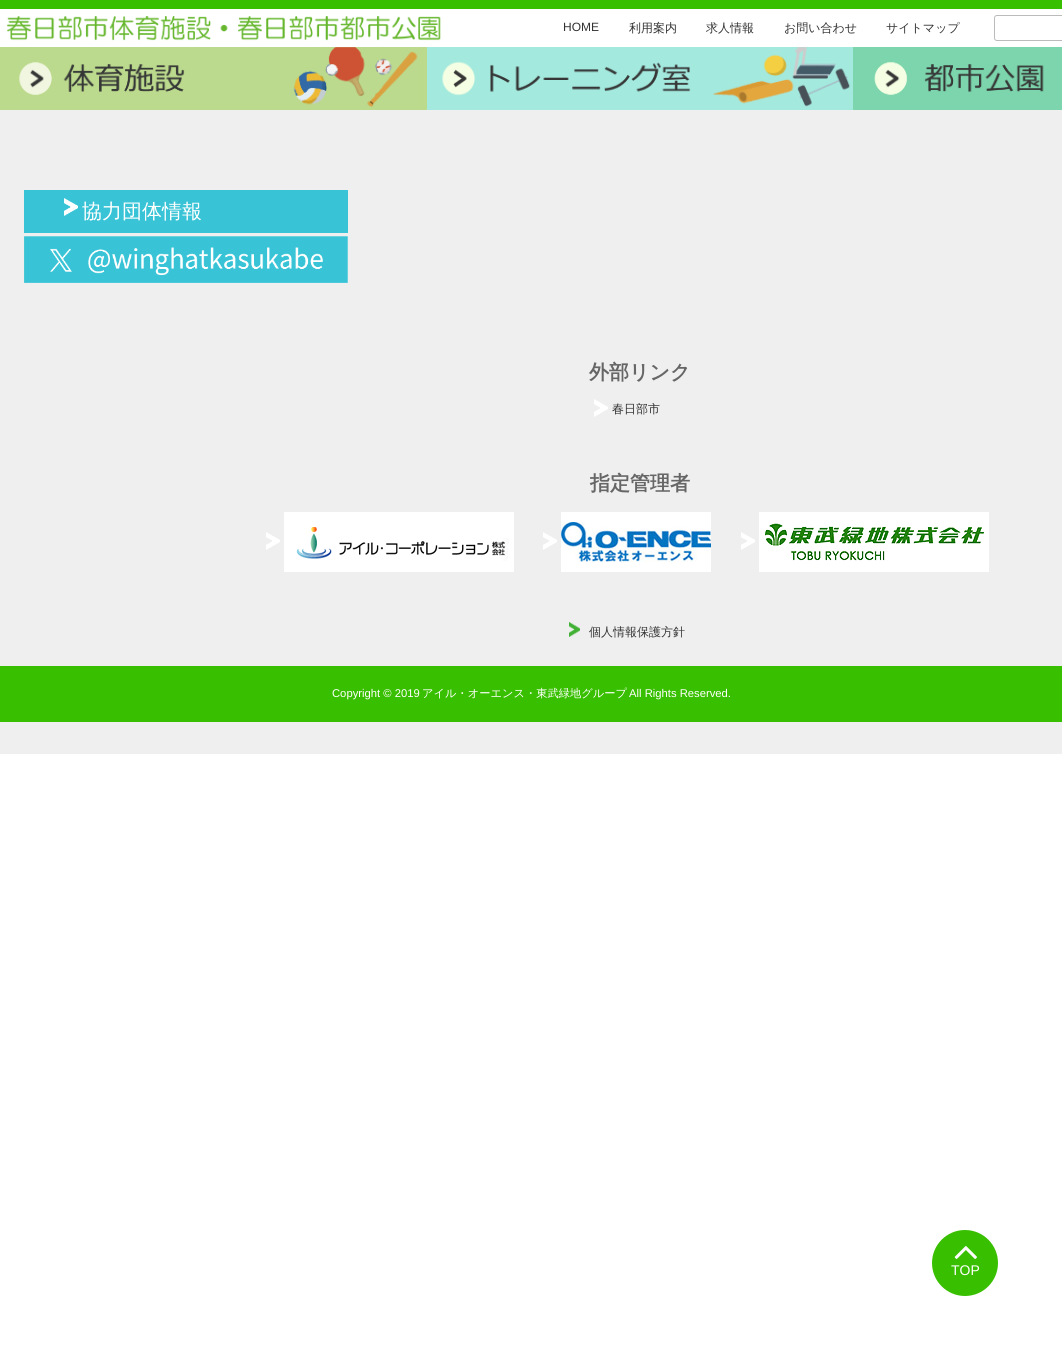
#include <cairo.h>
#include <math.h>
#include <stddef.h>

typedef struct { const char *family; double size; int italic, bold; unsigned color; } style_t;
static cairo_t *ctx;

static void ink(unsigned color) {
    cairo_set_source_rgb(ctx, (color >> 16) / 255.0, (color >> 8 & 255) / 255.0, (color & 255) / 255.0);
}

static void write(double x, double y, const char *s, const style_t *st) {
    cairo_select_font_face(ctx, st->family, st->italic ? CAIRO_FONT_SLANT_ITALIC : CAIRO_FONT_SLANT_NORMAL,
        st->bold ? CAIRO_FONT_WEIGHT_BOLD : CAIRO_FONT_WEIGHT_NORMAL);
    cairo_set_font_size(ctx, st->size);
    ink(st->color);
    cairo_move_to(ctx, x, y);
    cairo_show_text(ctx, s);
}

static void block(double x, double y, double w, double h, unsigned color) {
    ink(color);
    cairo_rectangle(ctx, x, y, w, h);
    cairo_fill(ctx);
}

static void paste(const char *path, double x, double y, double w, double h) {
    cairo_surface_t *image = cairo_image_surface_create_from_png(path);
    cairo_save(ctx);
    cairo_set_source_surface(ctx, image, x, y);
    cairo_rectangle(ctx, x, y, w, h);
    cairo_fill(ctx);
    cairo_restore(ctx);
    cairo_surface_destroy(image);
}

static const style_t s1 = {"Liberation Sans", 12, 0, 0, 0x333333};
static const style_t s2 = {"WenQuanYi Zen Hei Medium", 12, 0, 0, 0x333333};
static const style_t s3 = {"WenQuanYi Zen Hei Medium", 20, 0, 0, 0xffffff};
static const style_t s4 = {"WenQuanYi Zen Hei", 20, 0, 1, 0x666666};
static const style_t s5 = {"Liberation Sans", 11.25, 0, 0, 0xffffff};
static const style_t s6 = {"WenQuanYi Zen Hei Medium", 11.25, 0, 0, 0xffffff};
static const style_t s7 = {"Liberation Sans", 14, 0, 0, 0xffffff};

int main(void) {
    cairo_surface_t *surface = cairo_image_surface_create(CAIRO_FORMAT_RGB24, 1062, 1360);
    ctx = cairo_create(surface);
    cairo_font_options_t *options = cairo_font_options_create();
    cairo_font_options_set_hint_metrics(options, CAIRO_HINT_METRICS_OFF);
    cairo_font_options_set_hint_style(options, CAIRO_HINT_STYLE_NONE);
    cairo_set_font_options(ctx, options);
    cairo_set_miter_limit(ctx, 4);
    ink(0xffffff);
    cairo_paint(ctx);
    block(0, 0, 1062, 9, 0x38c000);
    paste("pic1.png", 6, 16, 435, 25);
    write(563, 31, "HOME", &s1);
    write(629, 32, "利用案内", &s2);
    write(706, 32, "求人情報", &s2);
    write(784, 32, "お問い合わせ", &s2);
    write(886, 32, "サイトマップ", &s2);
    cairo_new_path(ctx);
    cairo_move_to(ctx, 997, 15.5);
    cairo_line_to(ctx, 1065.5, 15.5);
    cairo_line_to(ctx, 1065.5, 40.5);
    cairo_line_to(ctx, 997, 40.5);
    cairo_curve_to(ctx, 995.5, 40.5, 994.5, 39.5, 994.5, 38);
    cairo_line_to(ctx, 994.5, 18);
    cairo_curve_to(ctx, 994.5, 16.5, 995.5, 15.5, 997, 15.5);
    cairo_close_path(ctx);
    ink(0xbbbbbb);
    cairo_set_line_width(ctx, 1);
    cairo_stroke(ctx);
    block(0, 47, 1062, 63, 0xbbda8c);
    paste("pic2.png", 19, 47, 399, 60);
    paste("pic3.png", 427, 47, 426, 63);
    paste("pic4.png", 853, 47, 209, 63);
    block(0, 110, 1062, 644, 0xefefef);
    block(24, 190, 324, 43, 0x38c4d6);
    paste("pic5.png", 64, 198, 14, 18);
    write(82, 218, "協力団体情報", &s3);
    paste("pic6.png", 24, 236, 324, 47);
    write(589, 379, "外部リンク", &s4);
    paste("pic7.png", 594, 399, 14, 18);
    write(612, 413, "春日部市", &s2);
    write(590, 490, "指定管理者", &s4);
    paste("pic8.png", 266, 532, 14, 18);
    paste("pic9.png", 284, 512, 230, 60);
    paste("pic8.png", 543, 532, 14, 18);
    paste("pic10.png", 561, 512, 150, 60);
    paste("pic11.png", 741, 532, 14, 18);
    paste("pic12.png", 759, 512, 230, 60);
    paste("pic13.png", 569, 622, 11, 15);
    write(589, 636, "個人情報保護方針", &s2);
    block(0, 666, 1062, 56, 0x38c000);
    write(332, 697, "Copyright © 2019", &s5);
    write(422, 697, "アイル・オーエンス・東武緑地グループ", &s6);
    write(629, 697, "All Rights Reserved.", &s5);
    ink(0x38c000);
    cairo_new_path(ctx);
    cairo_arc(ctx, 965, 1263, 33, 0, 2 * M_PI);
    cairo_fill(ctx);
    paste("pic14.png", 954, 1246, 23, 13);
    write(951, 1275, "TOP", &s7);
    cairo_surface_write_to_png(surface, "screenshot.png");
    cairo_font_options_destroy(options);
    cairo_destroy(ctx);
    cairo_surface_destroy(surface);
    return 0;
}
